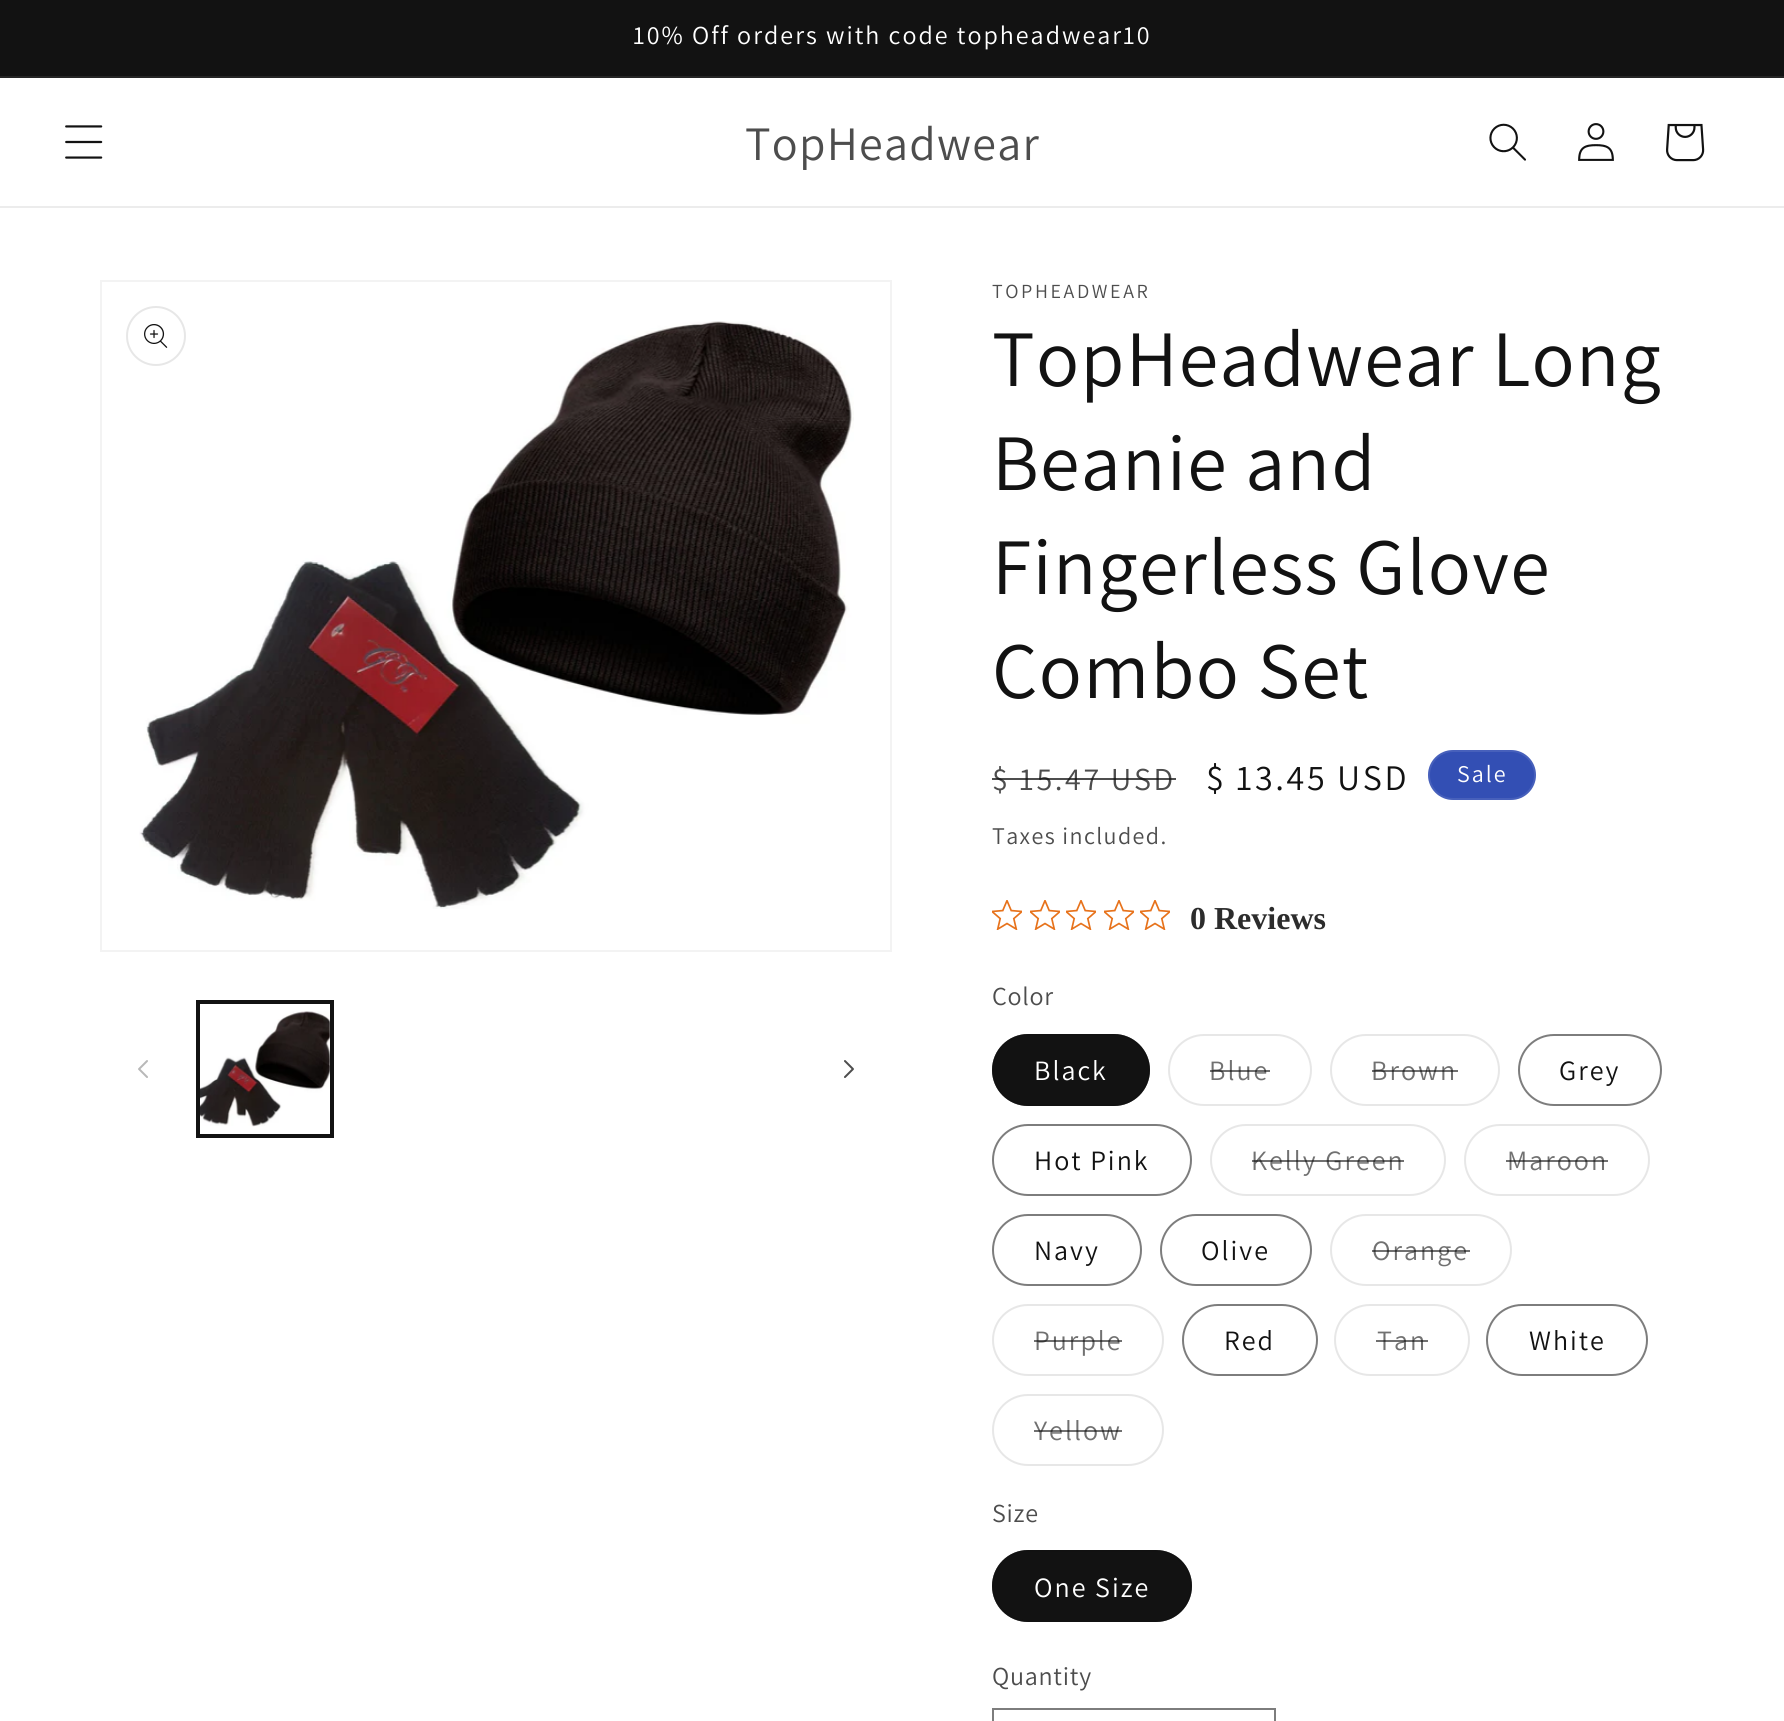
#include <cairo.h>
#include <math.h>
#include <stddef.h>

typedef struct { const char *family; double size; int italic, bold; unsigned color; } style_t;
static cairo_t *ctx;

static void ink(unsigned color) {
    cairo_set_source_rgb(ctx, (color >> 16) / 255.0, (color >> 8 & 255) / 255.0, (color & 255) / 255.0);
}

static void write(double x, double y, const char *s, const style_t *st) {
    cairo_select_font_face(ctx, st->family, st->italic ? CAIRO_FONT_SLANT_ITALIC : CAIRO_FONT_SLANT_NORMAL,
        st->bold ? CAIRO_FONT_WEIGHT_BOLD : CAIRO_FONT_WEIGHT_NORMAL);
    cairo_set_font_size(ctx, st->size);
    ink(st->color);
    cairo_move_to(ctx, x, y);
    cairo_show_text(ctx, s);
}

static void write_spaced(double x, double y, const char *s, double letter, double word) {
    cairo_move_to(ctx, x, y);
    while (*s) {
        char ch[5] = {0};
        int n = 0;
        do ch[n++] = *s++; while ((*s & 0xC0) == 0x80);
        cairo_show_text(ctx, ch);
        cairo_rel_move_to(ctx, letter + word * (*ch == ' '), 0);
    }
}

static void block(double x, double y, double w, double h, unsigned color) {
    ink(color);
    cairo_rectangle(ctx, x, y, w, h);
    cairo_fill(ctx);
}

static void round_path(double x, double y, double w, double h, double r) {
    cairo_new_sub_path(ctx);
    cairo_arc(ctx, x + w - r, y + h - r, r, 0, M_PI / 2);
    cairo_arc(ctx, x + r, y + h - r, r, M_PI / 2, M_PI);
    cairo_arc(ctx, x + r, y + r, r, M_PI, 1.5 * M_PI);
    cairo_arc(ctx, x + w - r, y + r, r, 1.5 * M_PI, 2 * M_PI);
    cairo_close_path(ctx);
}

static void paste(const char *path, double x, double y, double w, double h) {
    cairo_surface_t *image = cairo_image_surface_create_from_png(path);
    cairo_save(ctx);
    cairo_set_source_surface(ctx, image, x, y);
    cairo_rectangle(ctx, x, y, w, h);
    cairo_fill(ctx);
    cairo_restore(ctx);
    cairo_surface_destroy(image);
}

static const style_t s1 = {"Liberation Serif", 32, 0, 1, 0x2c2c2c};

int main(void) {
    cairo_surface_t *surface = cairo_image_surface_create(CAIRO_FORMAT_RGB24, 1784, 1721);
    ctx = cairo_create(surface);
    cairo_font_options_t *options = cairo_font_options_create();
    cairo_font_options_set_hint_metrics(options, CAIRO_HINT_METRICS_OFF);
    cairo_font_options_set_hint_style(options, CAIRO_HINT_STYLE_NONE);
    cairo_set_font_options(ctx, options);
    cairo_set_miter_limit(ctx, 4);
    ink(0xffffff);
    cairo_paint(ctx);
    block(0, 0, 1784, 76, 0x121212);
    block(0, 76, 1784, 2, 0x252525);
    cairo_select_font_face(ctx, "Assistant", CAIRO_FONT_SLANT_NORMAL, CAIRO_FONT_WEIGHT_NORMAL);
    cairo_set_font_size(ctx, 26);
    ink(0xffffff);
    write_spaced(633, 44, "10% Off orders with code topheadwear10", 2, 0);
    block(0, 206, 1784, 2, 0xececec);
    paste("pic1.png", 65, 125, 38, 34);
    cairo_set_font_size(ctx, 48);
    ink(0x4d4d4d);
    write_spaced(745, 160, "TopHeadwear", 1.25, 0);
    paste("pic2.png", 1489, 123, 37, 38);
    paste("pic3.png", 1578, 123, 36, 38);
    paste("pic4.png", 1666, 123, 39, 39);
    cairo_rectangle(ctx, 101, 281, 790, 670);
    ink(0xf3f3f3);
    cairo_stroke(ctx);
    paste("pic6.png", 139, 321, 715, 588);
    cairo_arc(ctx, 156, 336, 29, 0, 2 * M_PI);
    ink(0xe7e7e7);
    cairo_stroke(ctx);
    paste("pic5.png", 144, 324, 24, 24);
    paste("pic7.png", 138, 1060, 10, 18);
    cairo_rectangle(ctx, 197, 1001, 136, 136);
    ink(0x121212);
    cairo_stroke(ctx);
    cairo_rectangle(ctx, 199, 1003, 132, 132);
    cairo_stroke(ctx);
    paste("pic8.png", 200, 1011, 130, 116);
    paste("pic9.png", 844, 1060, 10, 18);
    cairo_set_font_size(ctx, 20);
    ink(0x4d4d4d);
    write_spaced(992, 298, "TOPHEADWEAR", 2.6, 0);
    cairo_set_font_size(ctx, 80);
    ink(0x121212);
    write_spaced(992, 386, "TopHeadwear Long", 1.25, 0);
    write_spaced(992, 490, "Beanie and", 1.25, 0);
    write_spaced(992, 594, "Fingerless Glove", 1.25, 0);
    write_spaced(992, 698, "Combo Set", 1.25, 0);
    cairo_set_font_size(ctx, 32);
    ink(0x4d4d4d);
    write_spaced(992, 790, "$ 15.47 USD", 2.6, 0);
    cairo_set_source_rgba(ctx, 0.071, 0.071, 0.071, 0.75);
    cairo_rectangle(ctx, 992, 778, 184, 2);
    cairo_fill(ctx);
    cairo_set_font_size(ctx, 36);
    ink(0x121212);
    write_spaced(1206, 790, "$ 13.45 USD", 2.6, 0);
    ink(0x334fb4);
    round_path(1428, 750, 108, 50, 25);
    cairo_fill(ctx);
    round_path(1429, 751, 106, 48, 24);
    cairo_set_source_rgba(ctx, 1, 1, 1, 0.1);
    cairo_stroke(ctx);
    cairo_set_font_size(ctx, 24);
    ink(0xffffff);
    write_spaced(1457, 782, "Sale", 2, 0);
    ink(0x4d4d4d);
    write_spaced(992, 844, "Taxes included.", 1.4, 0);
    paste("pic10.png", 992, 900, 30, 30);
    paste("pic10.png", 1030, 900, 30, 30);
    paste("pic10.png", 1066, 900, 30, 30);
    paste("pic10.png", 1104, 900, 30, 30);
    paste("pic10.png", 1140, 900, 30, 30);
    write(1190, 929, "0 Reviews", &s1);
    cairo_select_font_face(ctx, "Assistant", CAIRO_FONT_SLANT_NORMAL, CAIRO_FONT_WEIGHT_NORMAL);
    cairo_set_font_size(ctx, 26);
    ink(0x4d4d4d);
    write_spaced(992, 1005, "Color", 0.75, 0);
    ink(0x121212);
    round_path(992, 1034, 158, 72, 36);
    cairo_fill(ctx);
    round_path(993, 1035, 156, 70, 35);
    cairo_set_source_rgba(ctx, 0.071, 0.071, 0.071, 0.55);
    cairo_stroke(ctx);
    cairo_set_font_size(ctx, 28);
    ink(0xffffff);
    write_spaced(1034, 1080, "Black", 2, 0);
    round_path(1169, 1035, 142, 70, 35);
    ink(0xe7e7e7);
    cairo_stroke(ctx);
    ink(0x717171);
    write_spaced(1209, 1080, "Blue", 2, 0);
    cairo_set_source_rgba(ctx, 0.071, 0.071, 0.071, 0.6);
    cairo_rectangle(ctx, 1210, 1070, 60, 2);
    cairo_fill(ctx);
    round_path(1331, 1035, 168, 70, 35);
    ink(0xe7e7e7);
    cairo_stroke(ctx);
    ink(0x717171);
    write_spaced(1371, 1080, "Brown", 2, 0);
    cairo_set_source_rgba(ctx, 0.071, 0.071, 0.071, 0.6);
    cairo_rectangle(ctx, 1372, 1070, 86, 2);
    cairo_fill(ctx);
    round_path(1519, 1035, 142, 70, 35);
    ink(0x7d7d7d);
    cairo_stroke(ctx);
    ink(0x121212);
    write_spaced(1559, 1080, "Grey", 2, 0);
    round_path(993, 1125, 198, 70, 35);
    ink(0x7d7d7d);
    cairo_stroke(ctx);
    ink(0x121212);
    write_spaced(1034, 1170, "Hot Pink", 2, 0);
    round_path(1211, 1125, 234, 70, 35);
    ink(0xe7e7e7);
    cairo_stroke(ctx);
    ink(0x717171);
    write_spaced(1251, 1170, "Kelly Green", 2, 0);
    cairo_set_source_rgba(ctx, 0.071, 0.071, 0.071, 0.6);
    cairo_rectangle(ctx, 1252, 1160, 152, 2);
    cairo_fill(ctx);
    round_path(1465, 1125, 184, 70, 35);
    ink(0xe7e7e7);
    cairo_stroke(ctx);
    ink(0x717171);
    write_spaced(1507, 1170, "Maroon", 2, 0);
    cairo_set_source_rgba(ctx, 0.071, 0.071, 0.071, 0.6);
    cairo_rectangle(ctx, 1506, 1160, 102, 2);
    cairo_fill(ctx);
    round_path(993, 1215, 148, 70, 35);
    ink(0x7d7d7d);
    cairo_stroke(ctx);
    ink(0x121212);
    write_spaced(1034, 1260, "Navy", 2, 0);
    round_path(1161, 1215, 150, 70, 35);
    ink(0x7d7d7d);
    cairo_stroke(ctx);
    ink(0x121212);
    write_spaced(1201, 1260, "Olive", 2, 0);
    round_path(1331, 1215, 180, 70, 35);
    ink(0xe7e7e7);
    cairo_stroke(ctx);
    ink(0x717171);
    write_spaced(1372, 1260, "Orange", 2, 0);
    cairo_set_source_rgba(ctx, 0.071, 0.071, 0.071, 0.6);
    cairo_rectangle(ctx, 1372, 1250, 98, 2);
    cairo_fill(ctx);
    round_path(993, 1305, 170, 70, 35);
    ink(0xe7e7e7);
    cairo_stroke(ctx);
    ink(0x717171);
    write_spaced(1034, 1350, "Purple", 2, 0);
    cairo_set_source_rgba(ctx, 0.071, 0.071, 0.071, 0.6);
    cairo_rectangle(ctx, 1034, 1340, 88, 2);
    cairo_fill(ctx);
    round_path(1183, 1305, 134, 70, 35);
    ink(0x7d7d7d);
    cairo_stroke(ctx);
    ink(0x121212);
    write_spaced(1224, 1350, "Red", 2, 0);
    round_path(1335, 1305, 134, 70, 35);
    ink(0xe7e7e7);
    cairo_stroke(ctx);
    ink(0x717171);
    write_spaced(1377, 1350, "Tan", 2, 0);
    cairo_set_source_rgba(ctx, 0.071, 0.071, 0.071, 0.6);
    cairo_rectangle(ctx, 1376, 1340, 52, 2);
    cairo_fill(ctx);
    round_path(1487, 1305, 160, 70, 35);
    ink(0x7d7d7d);
    cairo_stroke(ctx);
    ink(0x121212);
    write_spaced(1529, 1350, "White", 2, 0);
    round_path(993, 1395, 170, 70, 35);
    ink(0xe7e7e7);
    cairo_stroke(ctx);
    ink(0x717171);
    write_spaced(1034, 1440, "Yellow", 2, 0);
    cairo_set_source_rgba(ctx, 0.071, 0.071, 0.071, 0.6);
    cairo_rectangle(ctx, 1034, 1430, 88, 2);
    cairo_fill(ctx);
    cairo_set_font_size(ctx, 26);
    ink(0x4d4d4d);
    write_spaced(992, 1522, "Size", 0.75, 0);
    ink(0x121212);
    round_path(992, 1550, 200, 72, 36);
    cairo_fill(ctx);
    round_path(993, 1551, 198, 70, 35);
    cairo_set_source_rgba(ctx, 0.071, 0.071, 0.071, 0.55);
    cairo_stroke(ctx);
    cairo_set_font_size(ctx, 28);
    ink(0xffffff);
    write_spaced(1034, 1597, "One Size", 2, 0);
    cairo_set_font_size(ctx, 26);
    ink(0x4d4d4d);
    write_spaced(992, 1685, "Quantity", 0.75, 0);
    cairo_rectangle(ctx, 993, 1709, 282, 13);
    ink(0x7d7d7d);
    cairo_stroke(ctx);
    cairo_surface_write_to_png(surface, "screenshot.png");
    cairo_font_options_destroy(options);
    cairo_destroy(ctx);
    cairo_surface_destroy(surface);
    return 0;
}
